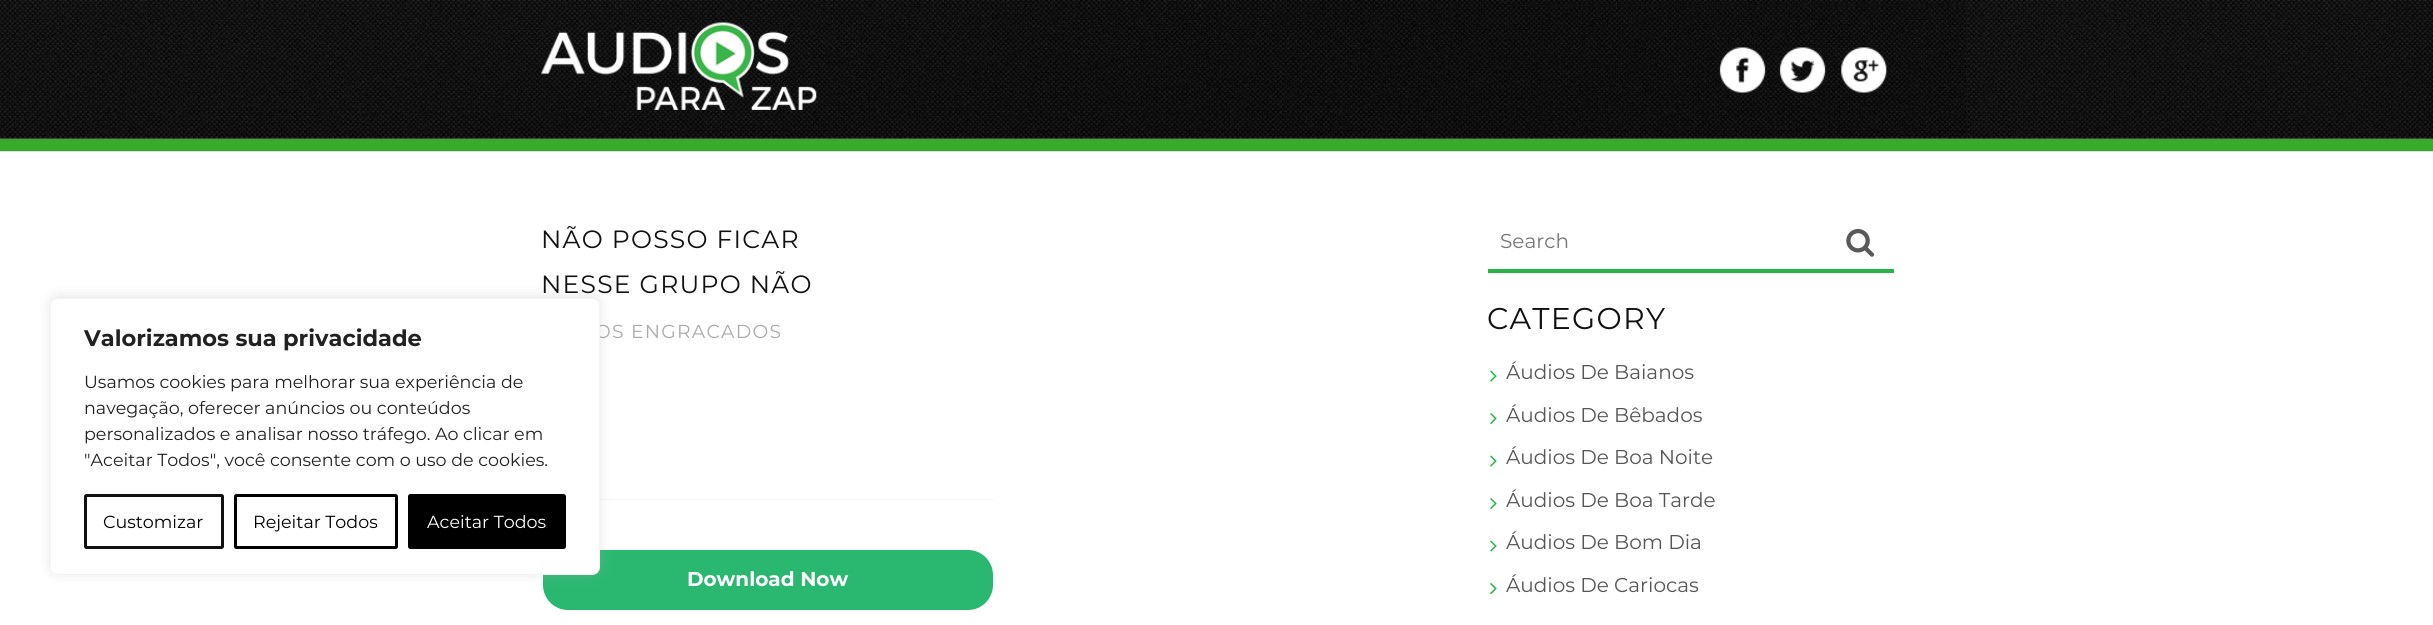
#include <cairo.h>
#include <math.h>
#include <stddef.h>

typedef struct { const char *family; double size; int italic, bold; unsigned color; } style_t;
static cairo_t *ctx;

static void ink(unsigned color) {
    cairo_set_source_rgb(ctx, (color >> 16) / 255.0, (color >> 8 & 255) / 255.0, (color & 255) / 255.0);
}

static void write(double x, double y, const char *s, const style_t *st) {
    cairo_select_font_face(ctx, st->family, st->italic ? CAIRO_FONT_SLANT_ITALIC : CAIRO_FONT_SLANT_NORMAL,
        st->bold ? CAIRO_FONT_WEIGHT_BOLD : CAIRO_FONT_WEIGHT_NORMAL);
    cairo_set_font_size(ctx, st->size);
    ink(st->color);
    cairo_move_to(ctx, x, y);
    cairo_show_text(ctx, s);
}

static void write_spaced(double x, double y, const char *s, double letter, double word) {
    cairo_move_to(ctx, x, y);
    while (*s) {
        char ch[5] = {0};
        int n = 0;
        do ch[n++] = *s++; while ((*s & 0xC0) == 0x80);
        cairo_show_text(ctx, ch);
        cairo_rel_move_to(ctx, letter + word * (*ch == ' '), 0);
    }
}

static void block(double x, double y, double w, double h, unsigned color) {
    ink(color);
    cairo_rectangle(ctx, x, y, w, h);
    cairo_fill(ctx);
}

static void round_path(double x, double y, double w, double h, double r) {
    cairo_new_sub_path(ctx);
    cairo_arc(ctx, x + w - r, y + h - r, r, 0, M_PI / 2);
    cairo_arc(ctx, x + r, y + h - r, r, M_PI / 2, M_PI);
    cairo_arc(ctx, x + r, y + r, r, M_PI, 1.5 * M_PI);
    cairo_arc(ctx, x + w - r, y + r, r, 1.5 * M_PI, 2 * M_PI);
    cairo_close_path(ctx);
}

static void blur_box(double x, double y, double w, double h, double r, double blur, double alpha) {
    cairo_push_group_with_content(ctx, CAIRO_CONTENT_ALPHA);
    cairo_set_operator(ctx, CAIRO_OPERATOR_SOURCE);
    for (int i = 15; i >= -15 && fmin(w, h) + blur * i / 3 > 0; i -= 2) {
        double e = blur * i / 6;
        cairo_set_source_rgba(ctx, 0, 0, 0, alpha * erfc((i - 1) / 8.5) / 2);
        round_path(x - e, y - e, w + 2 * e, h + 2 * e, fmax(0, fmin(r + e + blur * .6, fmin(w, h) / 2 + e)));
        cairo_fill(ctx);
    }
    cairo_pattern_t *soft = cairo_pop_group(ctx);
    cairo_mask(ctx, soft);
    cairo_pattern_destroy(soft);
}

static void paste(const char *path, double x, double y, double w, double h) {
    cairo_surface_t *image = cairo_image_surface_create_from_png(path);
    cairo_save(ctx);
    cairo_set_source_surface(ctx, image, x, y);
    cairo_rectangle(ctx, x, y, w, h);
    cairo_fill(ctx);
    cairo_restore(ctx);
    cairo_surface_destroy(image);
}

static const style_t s1 = {"Montserrat", 22.5, 0, 1, 0x212121};
static const style_t s2 = {"Montserrat", 17.5, 0, 0, 0x212121};
static const style_t s3 = {"Montserrat", 17.5, 0, 0, 0x000000};
static const style_t s4 = {"Montserrat", 17.5, 0, 0, 0xffffff};
static const style_t s5 = {"Montserrat", 20, 0, 1, 0xffffff};
static const style_t s6 = {"Montserrat", 20, 0, 0, 0x757575};
static const style_t s7 = {"Montserrat", 20, 0, 0, 0x555555};

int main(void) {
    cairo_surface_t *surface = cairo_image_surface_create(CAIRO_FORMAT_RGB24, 2433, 625);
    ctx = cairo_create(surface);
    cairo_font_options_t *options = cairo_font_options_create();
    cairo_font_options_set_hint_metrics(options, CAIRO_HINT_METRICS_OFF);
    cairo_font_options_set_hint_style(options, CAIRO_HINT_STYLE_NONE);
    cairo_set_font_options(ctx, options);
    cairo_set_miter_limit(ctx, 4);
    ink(0xffffff);
    cairo_paint(ctx);
    block(600, 499, 394, 1, 0xf6f6f6);
    ink(0x2ab870);
    round_path(543, 550, 450, 60, 25);
    cairo_fill(ctx);
    ink(0xacabab);
    blur_box(50, 296, 550, 278, 8, 6, 0.3);
    cairo_select_font_face(ctx, "Montserrat", CAIRO_FONT_SLANT_NORMAL, CAIRO_FONT_WEIGHT_NORMAL);
    cairo_set_font_size(ctx, 18.75);
    ink(0xaaaaaa);
    write_spaced(595, 338, "OS ENGRACADOS", 1.25, 0);
    ink(0xffffff);
    round_path(50.5, 298.5, 549, 276, 7.5);
    cairo_fill_preserve(ctx);
    ink(0xf4f4f4);
    cairo_set_line_width(ctx, 1);
    cairo_stroke(ctx);
    write(84, 346, "Valorizamos sua privacidade", &s1);
    write(84, 388, "Usamos cookies para melhorar sua experiência de", &s2);
    write(84, 414, "navegação, oferecer anúncios ou conteúdos", &s2);
    write(84, 440, "personalizados e analisar nosso tráfego. Ao clicar em", &s2);
    write(84, 466, "\"Aceitar Todos\", você consente com o uso de cookies.", &s2);
    round_path(85.5, 495.5, 137, 52, 1);
    ink(0x111111);
    cairo_set_line_width(ctx, 3);
    cairo_stroke(ctx);
    write(103, 528, "Customizar", &s3);
    round_path(235.5, 495.5, 161, 52, 1);
    cairo_stroke(ctx);
    write(253, 528, "Rejeitar Todos", &s3);
    round_path(409.5, 495.5, 155, 52, 1);
    cairo_fill_preserve(ctx);
    cairo_stroke(ctx);
    write(427, 528, "Aceitar Todos", &s4);
    paste("pic1.png", 0, 0, 2433, 152);
    paste("pic2.png", 541, 22, 276, 88);
    paste("pic3.png", 1719, 47, 47, 46);
    paste("pic4.png", 1779, 47, 47, 46);
    paste("pic5.png", 1841, 47, 46, 46);
    cairo_set_font_size(ctx, 25);
    ink(0x111111);
    write_spaced(541, 248, "NÃO POSSO FICAR", 1.25, 0);
    write_spaced(541, 293, "NESSE GRUPO NÃO", 1.25, 0);
    write(687, 586, "Download Now", &s5);
    block(1488, 269, 406, 4, 0x27b54a);
    write(1500, 248, "Search", &s6);
    paste("pic6.png", 1846, 228, 29, 29);
    cairo_set_font_size(ctx, 30);
    ink(0x111111);
    write_spaced(1487, 329, "CATEGORY", 1.25, 0);
    paste("pic7.png", 1490, 370, 7, 12);
    write(1506, 379, "Áudios De Baianos", &s7);
    paste("pic8.png", 1490, 413, 7, 12);
    write(1506, 422, "Áudios De Bêbados", &s7);
    paste("pic7.png", 1490, 455, 7, 12);
    write(1506, 464, "Áudios De Boa Noite", &s7);
    paste("pic8.png", 1490, 498, 7, 12);
    write(1506, 507, "Áudios De Boa Tarde", &s7);
    paste("pic7.png", 1490, 540, 7, 12);
    write(1506, 549, "Áudios De Bom Dia", &s7);
    paste("pic8.png", 1490, 583, 7, 12);
    write(1506, 592, "Áudios De Cariocas", &s7);
    cairo_surface_write_to_png(surface, "screenshot.png");
    cairo_font_options_destroy(options);
    cairo_destroy(ctx);
    cairo_surface_destroy(surface);
    return 0;
}
